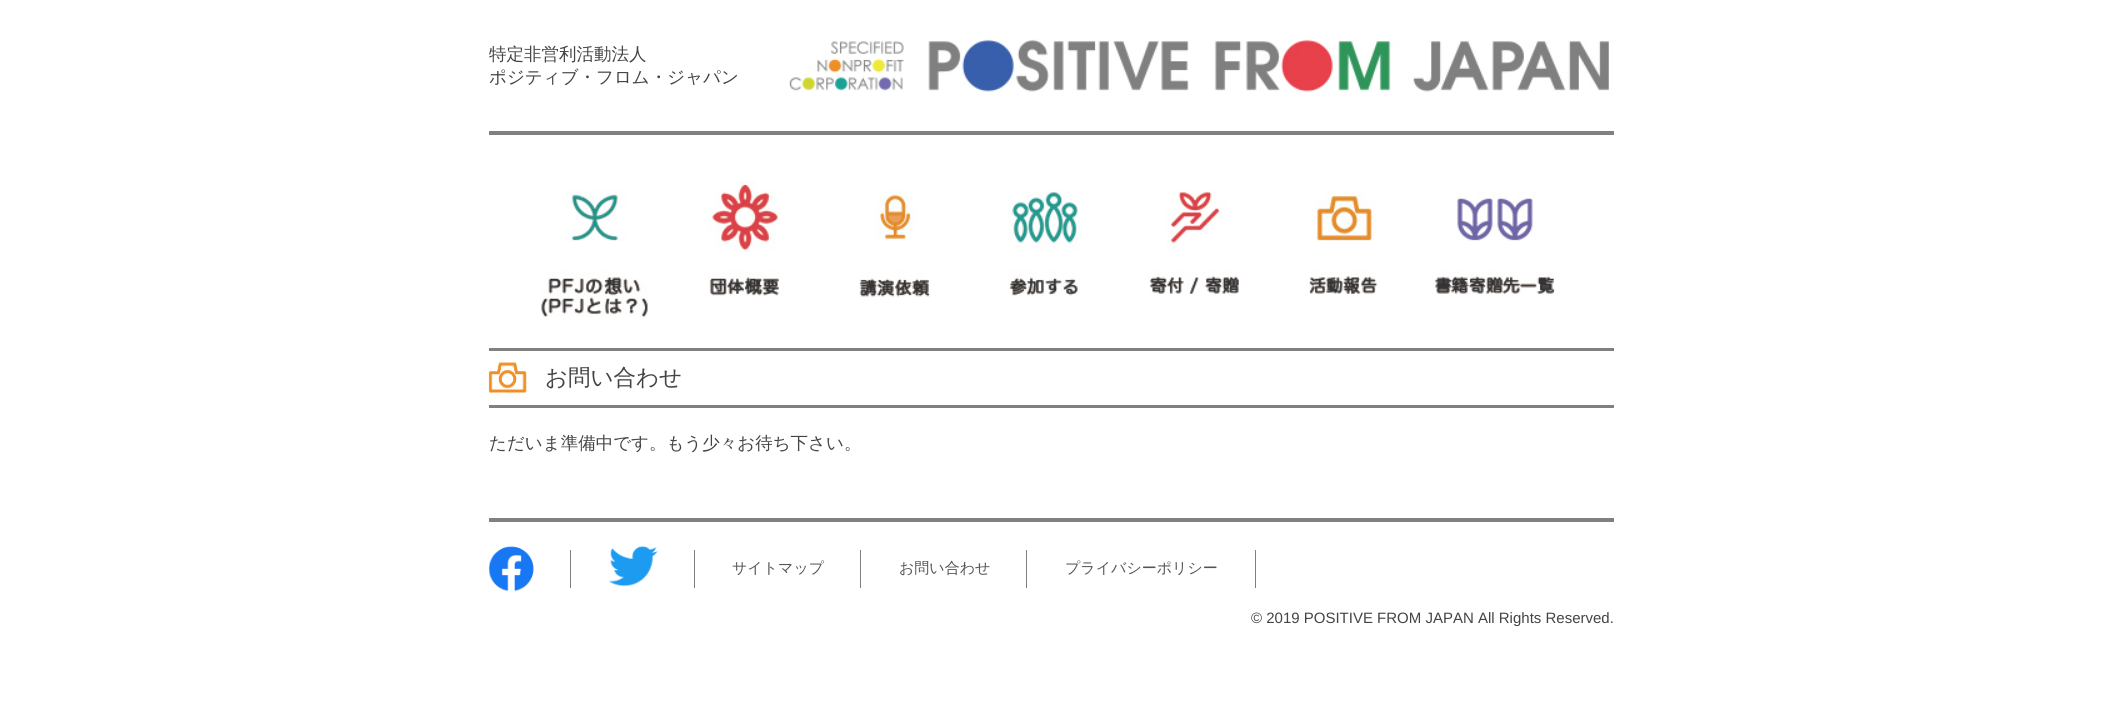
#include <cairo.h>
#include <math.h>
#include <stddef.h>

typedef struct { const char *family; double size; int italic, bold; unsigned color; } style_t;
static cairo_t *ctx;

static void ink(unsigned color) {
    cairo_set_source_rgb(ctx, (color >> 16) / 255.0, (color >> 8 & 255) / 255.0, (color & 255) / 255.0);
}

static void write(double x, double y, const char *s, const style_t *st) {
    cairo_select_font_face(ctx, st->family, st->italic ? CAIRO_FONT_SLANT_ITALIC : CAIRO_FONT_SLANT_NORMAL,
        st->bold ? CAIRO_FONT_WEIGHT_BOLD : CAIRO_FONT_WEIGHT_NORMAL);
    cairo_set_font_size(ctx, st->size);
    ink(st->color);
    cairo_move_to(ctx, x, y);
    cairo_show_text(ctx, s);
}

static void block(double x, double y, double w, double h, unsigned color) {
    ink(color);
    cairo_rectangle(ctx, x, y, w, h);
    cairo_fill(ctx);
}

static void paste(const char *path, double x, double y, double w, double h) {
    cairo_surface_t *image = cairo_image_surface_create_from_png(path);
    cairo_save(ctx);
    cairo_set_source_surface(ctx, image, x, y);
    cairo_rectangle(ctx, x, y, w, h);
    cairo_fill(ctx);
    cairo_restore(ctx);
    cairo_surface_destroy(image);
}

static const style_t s1 = {"WenQuanYi Zen Hei Medium", 17.5, 0, 0, 0x444444};
static const style_t s2 = {"WenQuanYi Zen Hei Medium", 22.5, 0, 0, 0x444444};
static const style_t s3 = {"WenQuanYi Zen Hei Medium", 15, 0, 0, 0x555555};
static const style_t s4 = {"Liberation Sans", 15, 0, 0, 0x444444};

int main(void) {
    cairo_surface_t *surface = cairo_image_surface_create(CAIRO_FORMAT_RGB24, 2102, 710);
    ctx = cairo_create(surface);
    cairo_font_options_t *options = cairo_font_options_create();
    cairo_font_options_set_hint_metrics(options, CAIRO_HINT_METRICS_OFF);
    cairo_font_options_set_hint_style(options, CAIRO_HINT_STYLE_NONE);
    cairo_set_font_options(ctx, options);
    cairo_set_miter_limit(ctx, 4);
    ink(0xffffff);
    cairo_paint(ctx);
    block(489, 131, 1125, 4, 0x808080);
    write(489, 60, "特定非営利活動法人", &s1);
    write(489, 83, "ポジティブ・フロム・ジャパン", &s1);
    paste("pic1.png", 788, 39, 821, 53);
    paste("pic2.png", 541, 190, 107, 127);
    paste("pic3.png", 708, 180, 72, 116);
    paste("pic4.png", 859, 190, 72, 107);
    paste("pic5.png", 1008, 190, 73, 106);
    paste("pic6.png", 1149, 190, 90, 104);
    paste("pic7.png", 1309, 190, 69, 104);
    paste("pic8.png", 1434, 190, 122, 104);
    block(489, 518, 1125, 4, 0x808080);
    paste("pic9.png", 488, 362, 39, 31);
    block(489, 348, 1125, 3, 0x808080);
    block(489, 405, 1125, 3, 0x808080);
    write(545, 385, "お問い合わせ", &s2);
    write(489, 449, "ただいま準備中です。もう少々お待ち下さい。", &s1);
    paste("pic10.png", 488, 546, 46, 46);
    block(570, 550, 1, 38, 0x808080);
    paste("pic11.png", 608, 546, 50, 41);
    block(694, 550, 1, 38, 0x808080);
    write(732, 573, "サイトマップ", &s3);
    block(860, 550, 1, 38, 0x808080);
    write(899, 573, "お問い合わせ", &s3);
    block(1026, 550, 1, 38, 0x808080);
    write(1065, 573, "プライバシーポリシー", &s3);
    block(1255, 550, 1, 38, 0x808080);
    write(1251, 623, "© 2019 POSITIVE FROM JAPAN All Rights Reserved.", &s4);
    cairo_surface_write_to_png(surface, "screenshot.png");
    cairo_font_options_destroy(options);
    cairo_destroy(ctx);
    cairo_surface_destroy(surface);
    return 0;
}
